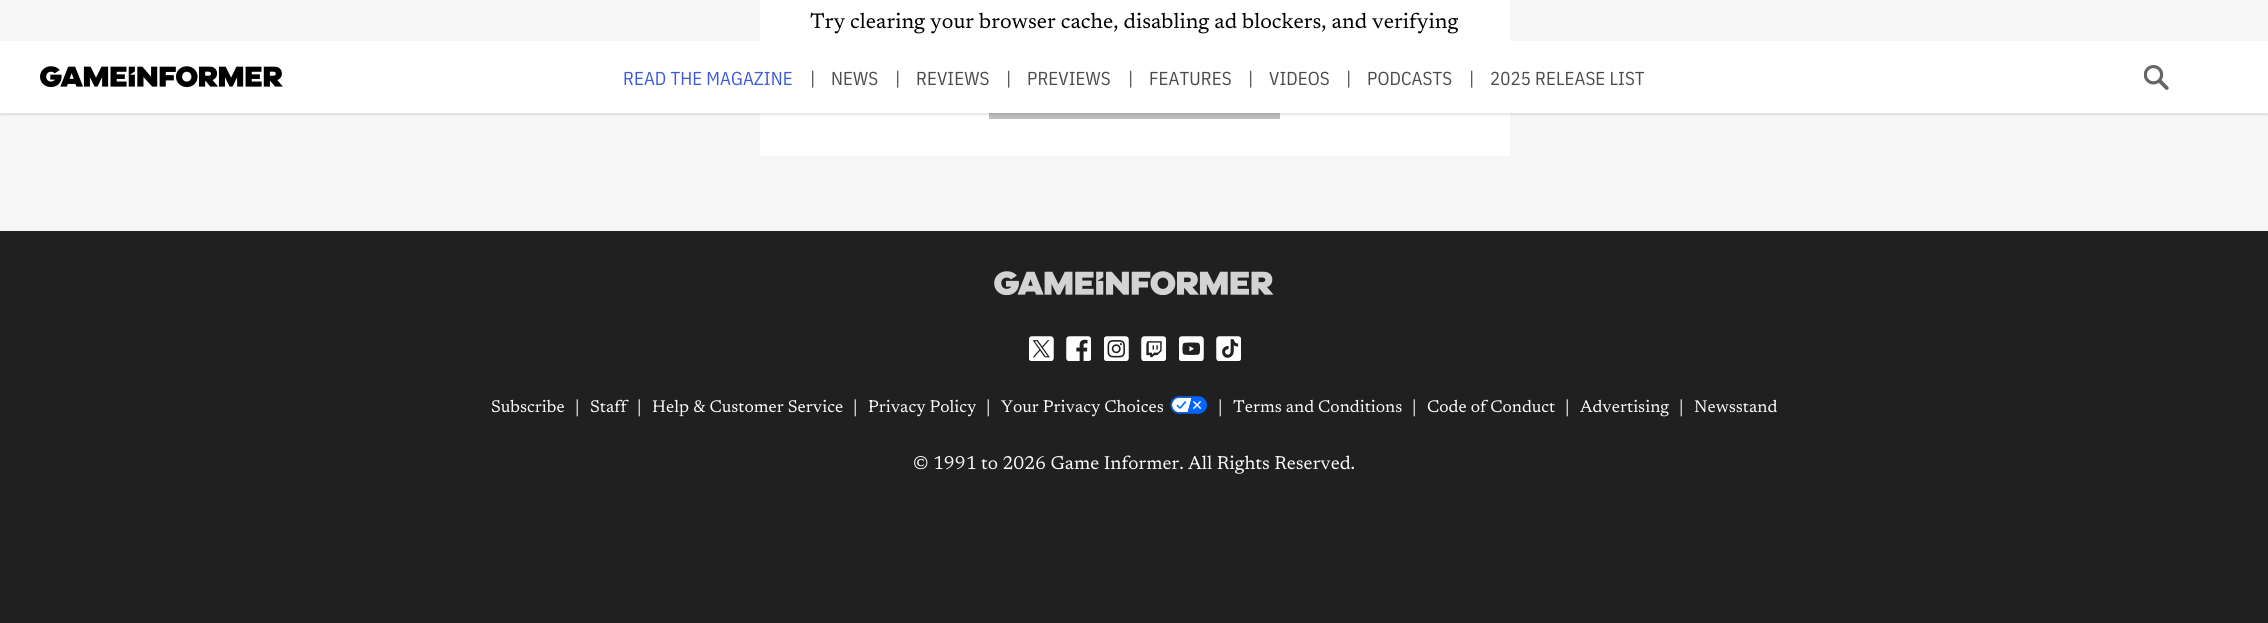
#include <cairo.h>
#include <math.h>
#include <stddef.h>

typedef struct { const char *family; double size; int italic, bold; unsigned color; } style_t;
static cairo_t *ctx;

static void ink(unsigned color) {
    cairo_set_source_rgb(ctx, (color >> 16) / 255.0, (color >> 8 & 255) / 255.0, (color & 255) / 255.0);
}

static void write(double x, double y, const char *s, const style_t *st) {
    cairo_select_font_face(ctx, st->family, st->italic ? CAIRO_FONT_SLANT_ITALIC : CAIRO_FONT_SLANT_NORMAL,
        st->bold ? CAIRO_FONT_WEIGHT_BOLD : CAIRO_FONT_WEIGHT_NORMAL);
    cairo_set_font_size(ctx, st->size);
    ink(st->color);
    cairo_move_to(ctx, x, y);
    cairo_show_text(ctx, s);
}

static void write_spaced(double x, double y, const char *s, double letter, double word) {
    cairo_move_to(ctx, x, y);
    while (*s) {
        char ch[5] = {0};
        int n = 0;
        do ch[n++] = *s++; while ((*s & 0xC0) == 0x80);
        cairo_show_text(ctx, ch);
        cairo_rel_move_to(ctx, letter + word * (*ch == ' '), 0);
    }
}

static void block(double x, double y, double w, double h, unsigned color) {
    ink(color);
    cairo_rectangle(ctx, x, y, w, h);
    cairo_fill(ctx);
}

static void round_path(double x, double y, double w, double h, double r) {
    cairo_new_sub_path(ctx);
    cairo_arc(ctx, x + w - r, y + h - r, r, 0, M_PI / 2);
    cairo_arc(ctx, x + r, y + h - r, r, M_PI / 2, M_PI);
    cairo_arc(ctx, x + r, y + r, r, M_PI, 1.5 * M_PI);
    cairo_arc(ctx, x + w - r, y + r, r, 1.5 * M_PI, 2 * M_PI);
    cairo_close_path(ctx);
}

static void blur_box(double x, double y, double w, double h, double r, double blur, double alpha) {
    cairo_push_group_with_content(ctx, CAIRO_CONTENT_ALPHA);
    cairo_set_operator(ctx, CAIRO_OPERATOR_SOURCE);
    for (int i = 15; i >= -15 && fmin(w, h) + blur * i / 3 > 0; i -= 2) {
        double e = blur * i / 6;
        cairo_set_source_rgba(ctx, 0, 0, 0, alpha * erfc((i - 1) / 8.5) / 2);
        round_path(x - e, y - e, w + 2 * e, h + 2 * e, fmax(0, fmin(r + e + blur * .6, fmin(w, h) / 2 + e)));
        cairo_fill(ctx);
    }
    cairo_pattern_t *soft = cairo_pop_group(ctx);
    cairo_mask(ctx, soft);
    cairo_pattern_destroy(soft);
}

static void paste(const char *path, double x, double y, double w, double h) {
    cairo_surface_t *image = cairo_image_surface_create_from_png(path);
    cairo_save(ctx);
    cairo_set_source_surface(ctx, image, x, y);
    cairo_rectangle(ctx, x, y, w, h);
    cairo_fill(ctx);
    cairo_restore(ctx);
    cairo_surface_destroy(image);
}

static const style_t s1 = {"Newsreader", 21.25, 0, 0, 0x000000};
static const style_t s2 = {"Newsreader", 17, 0, 0, 0xfbfbfb};
static const style_t s3 = {"Newsreader", 18.7, 0, 0, 0xfbfbfb};

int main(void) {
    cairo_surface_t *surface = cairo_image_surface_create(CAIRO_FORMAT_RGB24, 2268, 623);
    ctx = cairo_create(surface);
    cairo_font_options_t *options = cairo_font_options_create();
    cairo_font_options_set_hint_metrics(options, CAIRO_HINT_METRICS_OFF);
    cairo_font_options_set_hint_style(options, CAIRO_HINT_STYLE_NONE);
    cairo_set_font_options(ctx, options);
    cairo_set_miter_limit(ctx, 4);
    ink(0xf6f6f6);
    cairo_paint(ctx);
    block(760, 0, 750, 156, 0xffffff);
    write(810, 28, "Try clearing your browser cache, disabling ad blockers, and verifying", &s1);
    block(989, 113, 291, 6, 0xbcbec0);
    ink(0x000000);
    blur_box(0, 44, 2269, 71, 0, 1, 0.1);
    block(0, 41, 2268, 72, 0xffffff);
    paste("pic1.png", 40, 66, 243, 22);
    cairo_select_font_face(ctx, "IBM Plex Sans Condensed", CAIRO_FONT_SLANT_NORMAL, CAIRO_FONT_WEIGHT_NORMAL);
    cairo_set_font_size(ctx, 18.75);
    ink(0x3c59e0);
    write_spaced(623, 85, "READ THE MAGAZINE", 0.1, 0);
    ink(0x4b4b4b);
    write_spaced(810, 85, "|", 0.1, 0);
    write_spaced(831, 85, "NEWS", 0.1, 0);
    write_spaced(895, 85, "|", 0.1, 0);
    write_spaced(916, 85, "REVIEWS", 0.1, 0);
    write_spaced(1006, 85, "|", 0.1, 0);
    write_spaced(1027, 85, "PREVIEWS", 0.1, 0);
    write_spaced(1128, 85, "|", 0.1, 0);
    write_spaced(1149, 85, "FEATURES", 0.1, 0);
    write_spaced(1248, 85, "|", 0.1, 0);
    write_spaced(1269, 85, "VIDEOS", 0.1, 0);
    write_spaced(1346, 85, "|", 0.1, 0);
    write_spaced(1367, 85, "PODCASTS", 0.1, 0);
    write_spaced(1469, 85, "|", 0.1, 0);
    write_spaced(1490, 85, "2025 RELEASE LIST", 0.1, 0);
    paste("pic2.png", 2144, 65, 25, 25);
    block(0, 231, 2268, 392, 0x202020);
    paste("pic3.png", 994, 271, 280, 24);
    paste("pic4.png", 1029, 336, 25, 25);
    paste("pic5.png", 1066, 336, 25, 25);
    paste("pic6.png", 1104, 336, 25, 25);
    paste("pic7.png", 1141, 336, 25, 25);
    paste("pic8.png", 1179, 336, 25, 25);
    paste("pic9.png", 1216, 336, 25, 25);
    write(491, 412, "Subscribe", &s2);
    write(575, 412, "|", &s2);
    write(590, 412, "Staff", &s2);
    write(637, 412, "|", &s2);
    write(652, 412, "Help & Customer Service", &s2);
    write(853, 412, "|", &s2);
    write(868, 412, "Privacy Policy", &s2);
    write(986, 412, "|", &s2);
    write(1001, 412, "Your Privacy Choices", &s2);
    paste("pic10.png", 1170, 396, 37, 18);
    write(1218, 412, "|", &s2);
    write(1233, 412, "Terms and Conditions", &s2);
    write(1412, 412, "|", &s2);
    write(1427, 412, "Code of Conduct", &s2);
    write(1565, 412, "|", &s2);
    write(1580, 412, "Advertising", &s2);
    write(1679, 412, "|", &s2);
    write(1694, 412, "Newsstand", &s2);
    write(913, 469, "© 1991 to 2026 Game Informer. All Rights Reserved.", &s3);
    cairo_surface_write_to_png(surface, "screenshot.png");
    cairo_font_options_destroy(options);
    cairo_destroy(ctx);
    cairo_surface_destroy(surface);
    return 0;
}
